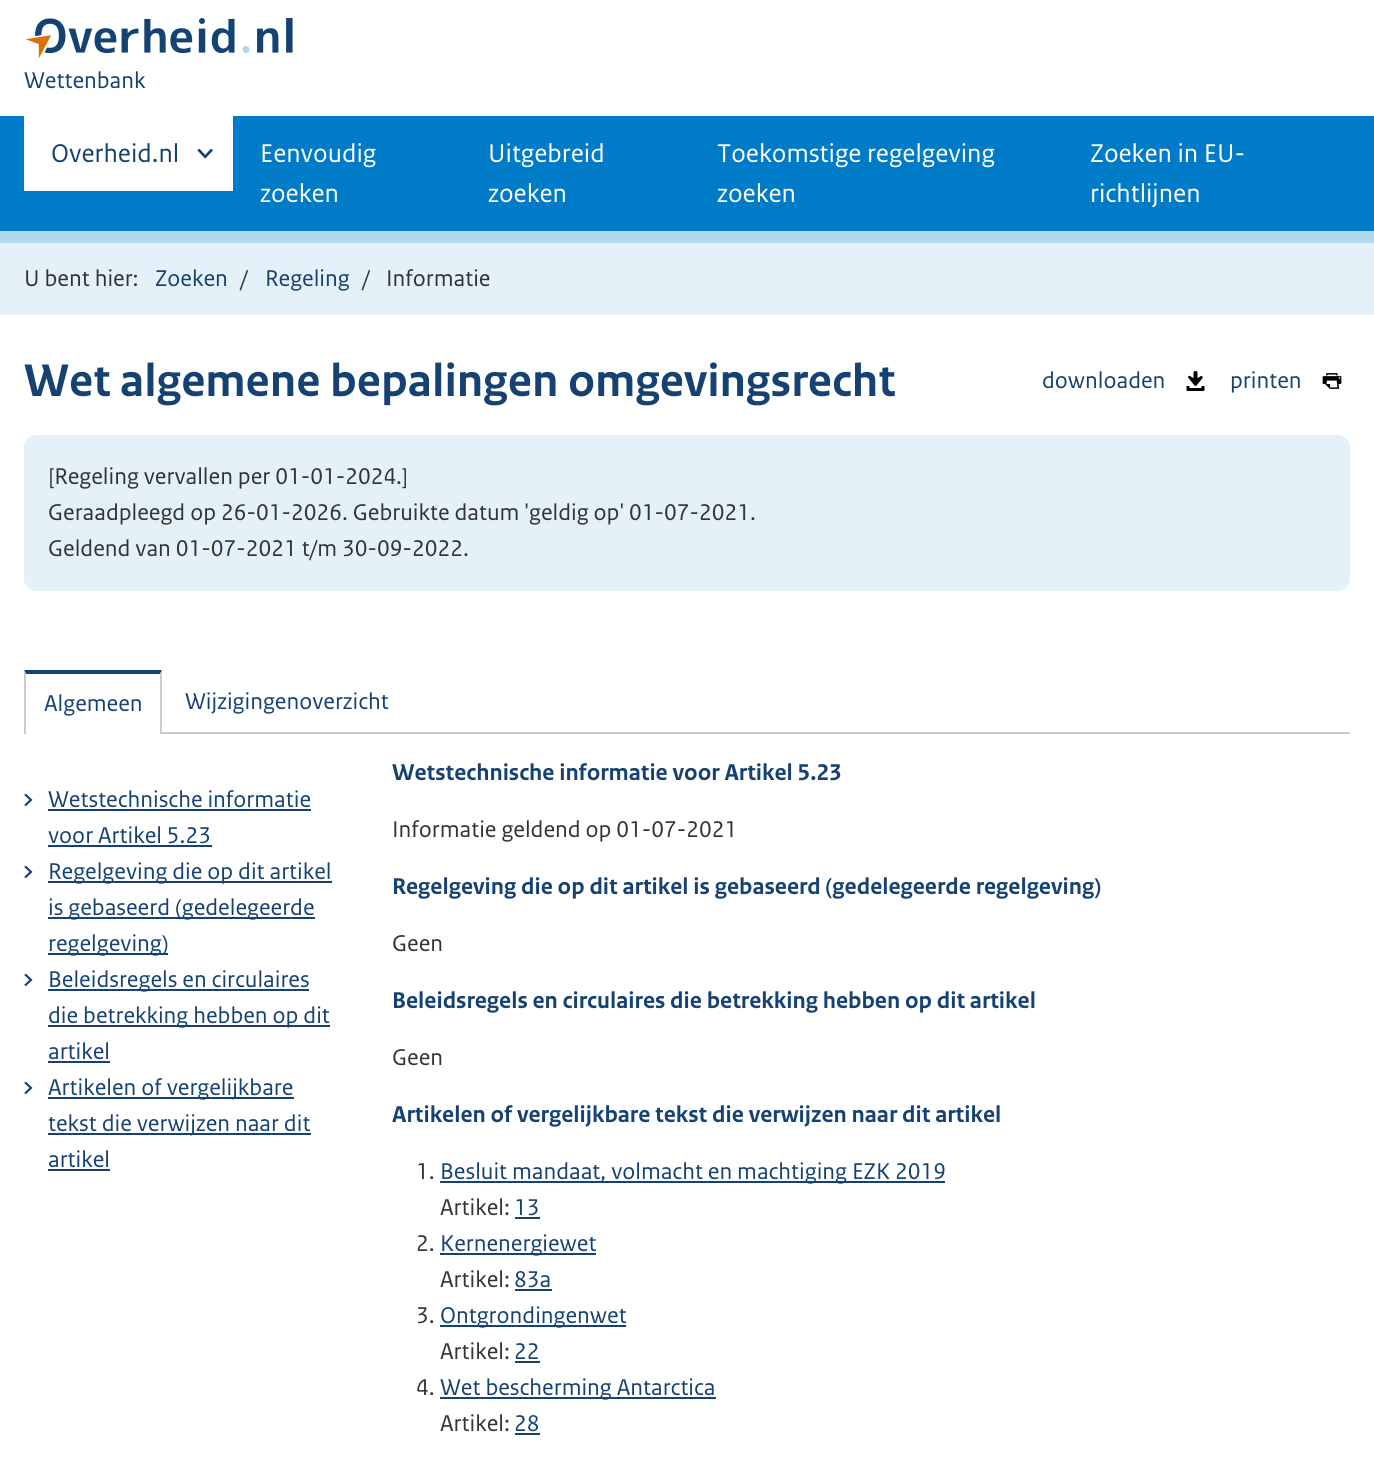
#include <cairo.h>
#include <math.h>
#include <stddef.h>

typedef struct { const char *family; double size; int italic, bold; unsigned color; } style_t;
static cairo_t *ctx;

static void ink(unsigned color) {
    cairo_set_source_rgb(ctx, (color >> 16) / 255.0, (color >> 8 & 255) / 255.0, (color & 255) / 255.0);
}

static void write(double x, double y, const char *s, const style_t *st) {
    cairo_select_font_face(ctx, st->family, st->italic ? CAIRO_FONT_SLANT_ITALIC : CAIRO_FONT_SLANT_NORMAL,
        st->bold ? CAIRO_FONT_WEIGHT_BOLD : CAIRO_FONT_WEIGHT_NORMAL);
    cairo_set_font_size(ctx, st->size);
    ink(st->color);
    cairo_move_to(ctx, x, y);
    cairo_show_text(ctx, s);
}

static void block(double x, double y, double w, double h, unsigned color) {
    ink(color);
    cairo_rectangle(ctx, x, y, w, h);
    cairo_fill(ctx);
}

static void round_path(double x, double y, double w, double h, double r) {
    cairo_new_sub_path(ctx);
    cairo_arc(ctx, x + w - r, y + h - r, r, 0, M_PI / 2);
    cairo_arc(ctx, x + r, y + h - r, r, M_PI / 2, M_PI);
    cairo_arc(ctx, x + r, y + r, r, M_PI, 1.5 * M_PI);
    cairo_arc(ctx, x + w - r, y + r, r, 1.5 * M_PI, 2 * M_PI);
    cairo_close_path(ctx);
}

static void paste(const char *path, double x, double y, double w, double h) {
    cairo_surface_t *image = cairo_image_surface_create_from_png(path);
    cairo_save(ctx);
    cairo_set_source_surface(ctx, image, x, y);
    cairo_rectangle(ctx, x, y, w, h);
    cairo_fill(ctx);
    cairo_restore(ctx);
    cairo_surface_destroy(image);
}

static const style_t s1 = {"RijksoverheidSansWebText", 24, 0, 0, 0x154273};
static const style_t s2 = {"RijksoverheidSansWebText", 27, 0, 0, 0x154273};
static const style_t s3 = {"RijksoverheidSansWebText", 27, 0, 0, 0xffffff};
static const style_t s4 = {"RijksoverheidSansWebText", 24, 0, 0, 0x333333};
static const style_t s5 = {"RijksoverheidSansWebText", 48, 0, 1, 0x154273};
static const style_t s6 = {"RijksoverheidSansWebText", 24, 0, 1, 0x154273};

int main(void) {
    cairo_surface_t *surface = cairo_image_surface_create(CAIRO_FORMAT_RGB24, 1374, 1458);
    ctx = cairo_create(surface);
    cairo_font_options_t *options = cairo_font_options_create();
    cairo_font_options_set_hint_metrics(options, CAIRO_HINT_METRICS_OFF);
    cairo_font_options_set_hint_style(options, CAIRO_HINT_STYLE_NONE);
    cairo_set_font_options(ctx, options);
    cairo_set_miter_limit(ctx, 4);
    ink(0xffffff);
    cairo_paint(ctx);
    block(0, 231, 1374, 12, 0xb2d7ee);
    paste("pic1.png", 25, 18, 268, 41);
    write(24, 88, "Wettenbank", &s1);
    block(0, 116, 1374, 115, 0x007bc7);
    block(24, 116, 209, 75, 0xffffff);
    paste("pic2.png", 197, 149, 16, 10);
    write(51, 162, "Overheid.nl", &s2);
    write(260, 162, "Eenvoudig", &s3);
    write(260, 202, "zoeken", &s3);
    write(488, 162, "Uitgebreid", &s3);
    write(488, 202, "zoeken", &s3);
    write(717, 162, "Toekomstige regelgeving", &s3);
    write(717, 202, "zoeken", &s3);
    write(1090, 162, "Zoeken in EU-", &s3);
    write(1090, 202, "richtlijnen", &s3);
    block(0, 243, 1374, 72, 0xe5f1f9);
    write(24, 286, "U bent hier:", &s4);
    write(155, 286, "Zoeken", &s1);
    write(240, 286, "/", &s4);
    write(265, 286, "Regeling", &s1);
    write(362, 286, "/", &s4);
    write(386, 286, "Informatie", &s4);
    write(24, 396, "Wet algemene bepalingen omgevingsrecht", &s5);
    write(1042, 388, "downloaden", &s1);
    paste("pic3.png", 1186, 371, 19, 20);
    write(1230, 388, "printen", &s1);
    paste("pic4.png", 1322, 373, 20, 16);
    ink(0xe5f1f9);
    round_path(24, 435, 1326, 156, 12);
    cairo_fill(ctx);
    write(48, 484, "[Regeling vervallen per 01-01-2024.]", &s4);
    write(48, 520, "Geraadpleegd op 26-01-2026. Gebruikte datum 'geldig op' 01-07-2021.", &s4);
    write(48, 556, "Geldend van 01-07-2021 t/m 30-09-2022.", &s4);
    block(162, 732, 1188, 2, 0xcccccc);
    ink(0x154273);
    cairo_new_path(ctx);
    cairo_move_to(ctx, 24, 670);
    cairo_line_to(ctx, 162, 670);
    cairo_line_to(ctx, 160, 674);
    cairo_line_to(ctx, 26, 674);
    cairo_close_path(ctx);
    cairo_fill(ctx);
    ink(0xcccccc);
    cairo_new_path(ctx);
    cairo_move_to(ctx, 162, 670);
    cairo_line_to(ctx, 162, 734);
    cairo_line_to(ctx, 160, 734);
    cairo_line_to(ctx, 160, 674);
    cairo_close_path(ctx);
    cairo_fill(ctx);
    cairo_new_path(ctx);
    cairo_move_to(ctx, 24, 734);
    cairo_line_to(ctx, 24, 670);
    cairo_line_to(ctx, 26, 674);
    cairo_line_to(ctx, 26, 734);
    cairo_close_path(ctx);
    cairo_fill(ctx);
    write(44, 711, "Algemeen", &s1);
    write(185, 709, "Wijzigingenoverzicht", &s1);
    paste("pic5.png", 24, 794, 9, 13);
    write(48, 807, "Wetstechnische informatie", &s1);
    block(48, 809, 263, 2, 0x154273);
    write(48, 843, "voor Artikel 5.23", &s1);
    block(48, 845, 164, 2, 0x154273);
    paste("pic5.png", 24, 866, 9, 13);
    block(48, 881, 284, 2, 0x154273);
    write(48, 879, "Regelgeving die op dit artikel", &s1);
    block(48, 917, 267, 2, 0x154273);
    write(48, 915, "is gebaseerd (gedelegeerde", &s1);
    block(48, 953, 120, 2, 0x154273);
    write(48, 951, "regelgeving)", &s1);
    paste("pic5.png", 24, 974, 9, 13);
    block(48, 989, 261, 2, 0x154273);
    write(48, 987, "Beleidsregels en circulaires", &s1);
    block(48, 1025, 282, 2, 0x154273);
    write(48, 1023, "die betrekking hebben op dit", &s1);
    write(48, 1059, "artikel", &s1);
    block(48, 1061, 62, 2, 0x154273);
    paste("pic5.png", 24, 1082, 9, 13);
    block(48, 1097, 246, 2, 0x154273);
    write(48, 1095, "Artikelen of vergelijkbare", &s1);
    block(48, 1133, 263, 2, 0x154273);
    write(48, 1131, "tekst die verwijzen naar dit", &s1);
    write(48, 1167, "artikel", &s1);
    block(48, 1169, 62, 2, 0x154273);
    write(392, 780, "Wetstechnische informatie voor Artikel 5.23", &s6);
    write(392, 837, "Informatie geldend op 01-07-2021", &s4);
    write(392, 894, "Regelgeving die op dit artikel is gebaseerd (gedelegeerde regelgeving)", &s6);
    write(392, 951, "Geen", &s4);
    write(392, 1008, "Beleidsregels en circulaires die betrekking hebben op dit artikel", &s6);
    write(392, 1065, "Geen", &s4);
    write(392, 1122, "Artikelen of vergelijkbare tekst die verwijzen naar dit artikel", &s6);
    write(416, 1179, "1.", &s4);
    block(440, 1181, 505, 2, 0x154273);
    write(440, 1179, "Besluit mandaat, volmacht en machtiging EZK 2019", &s1);
    write(440, 1215, "Artikel:", &s4);
    write(514, 1215, "13", &s1);
    block(515, 1217, 25, 2, 0x154273);
    write(416, 1251, "2.", &s4);
    block(440, 1253, 156, 2, 0x154273);
    write(440, 1251, "Kernenergiewet", &s1);
    write(440, 1287, "Artikel:", &s4);
    write(514, 1287, "83a", &s1);
    block(515, 1289, 37, 2, 0x154273);
    write(416, 1323, "3.", &s4);
    block(440, 1325, 186, 2, 0x154273);
    write(440, 1323, "Ontgrondingenwet", &s1);
    write(440, 1359, "Artikel:", &s4);
    write(514, 1359, "22", &s1);
    block(515, 1361, 25, 2, 0x154273);
    write(416, 1395, "4.", &s4);
    block(440, 1397, 276, 2, 0x154273);
    write(440, 1395, "Wet bescherming Antarctica", &s1);
    write(440, 1431, "Artikel:", &s4);
    write(514, 1431, "28", &s1);
    block(515, 1433, 25, 2, 0x154273);
    cairo_surface_write_to_png(surface, "screenshot.png");
    cairo_font_options_destroy(options);
    cairo_destroy(ctx);
    cairo_surface_destroy(surface);
    return 0;
}
